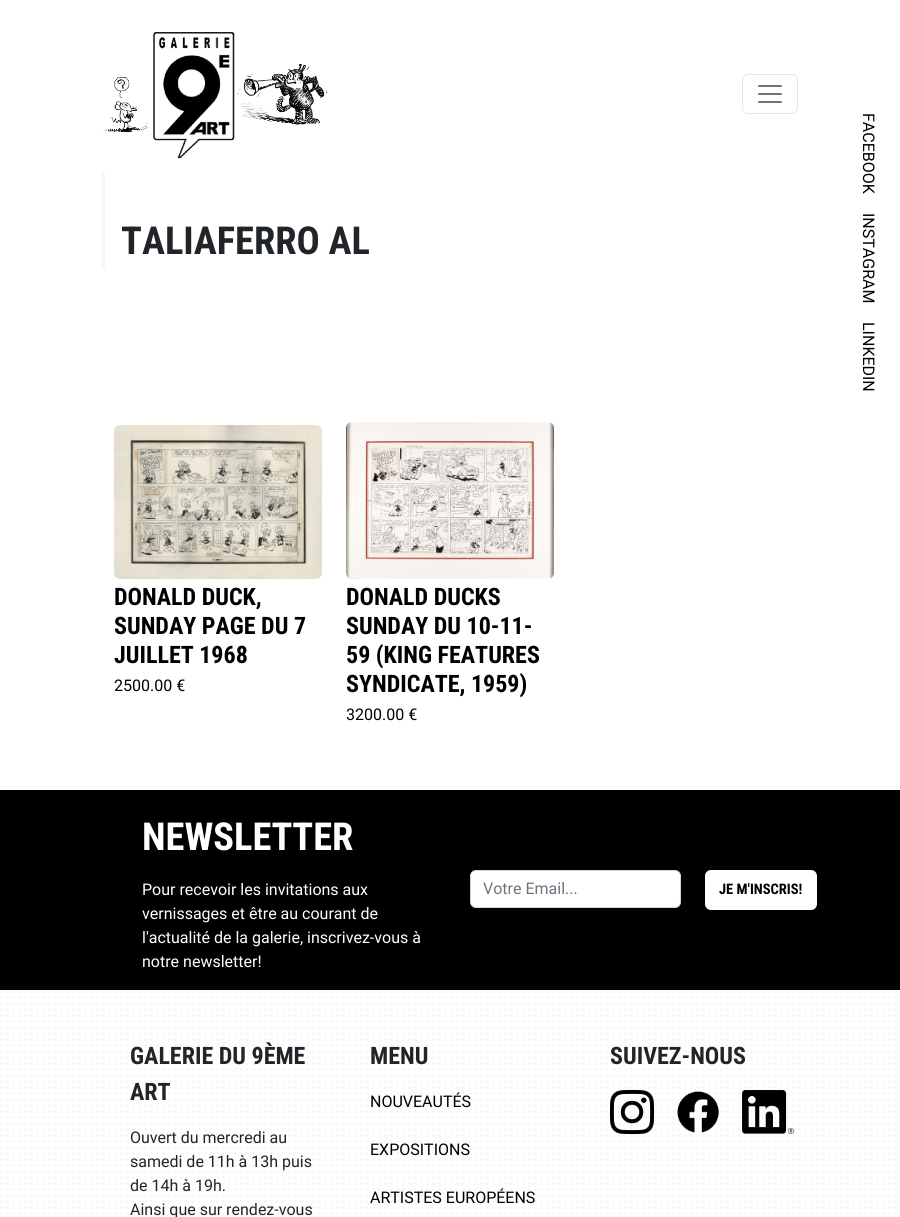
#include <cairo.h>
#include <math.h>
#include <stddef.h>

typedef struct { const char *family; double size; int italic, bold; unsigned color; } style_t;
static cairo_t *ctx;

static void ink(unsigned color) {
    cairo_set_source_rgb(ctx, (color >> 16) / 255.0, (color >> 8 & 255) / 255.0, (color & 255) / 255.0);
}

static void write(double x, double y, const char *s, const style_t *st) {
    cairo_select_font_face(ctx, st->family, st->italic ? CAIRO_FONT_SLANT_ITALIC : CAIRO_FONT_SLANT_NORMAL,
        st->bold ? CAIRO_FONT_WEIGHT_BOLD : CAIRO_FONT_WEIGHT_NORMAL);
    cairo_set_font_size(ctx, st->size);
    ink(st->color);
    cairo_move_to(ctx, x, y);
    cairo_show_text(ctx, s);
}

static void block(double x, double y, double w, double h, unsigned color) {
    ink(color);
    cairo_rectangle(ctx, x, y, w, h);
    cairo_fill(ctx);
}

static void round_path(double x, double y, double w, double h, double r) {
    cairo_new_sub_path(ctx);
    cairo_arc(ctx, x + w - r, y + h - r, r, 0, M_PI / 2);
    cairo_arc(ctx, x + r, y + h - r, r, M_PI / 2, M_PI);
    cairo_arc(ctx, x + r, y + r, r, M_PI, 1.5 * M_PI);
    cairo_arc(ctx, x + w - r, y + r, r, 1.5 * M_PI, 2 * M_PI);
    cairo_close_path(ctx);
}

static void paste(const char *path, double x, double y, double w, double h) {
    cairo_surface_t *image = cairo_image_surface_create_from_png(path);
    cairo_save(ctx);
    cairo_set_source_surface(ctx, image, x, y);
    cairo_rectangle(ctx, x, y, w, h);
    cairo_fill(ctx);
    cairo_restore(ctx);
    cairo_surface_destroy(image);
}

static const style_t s1 = {"Roboto Condensed", 38.5, 0, 1, 0x212529};
static const style_t s2 = {"Roboto Condensed", 24, 0, 1, 0x000000};
static const style_t s3 = {"Roboto", 16, 0, 0, 0x000000};
static const style_t s4 = {"Roboto Condensed", 38.5, 0, 1, 0xffffff};
static const style_t s5 = {"Roboto", 16, 0, 0, 0xffffff};
static const style_t s6 = {"Roboto", 16, 0, 0, 0x6c757d};
static const style_t s7 = {"Roboto Condensed", 14.5, 0, 1, 0x000000};
static const style_t s8 = {"Roboto Condensed", 24, 0, 1, 0x212529};
static const style_t s9 = {"Roboto", 16, 0, 0, 0x212529};

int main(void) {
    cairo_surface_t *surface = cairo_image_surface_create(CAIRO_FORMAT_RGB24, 900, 1217);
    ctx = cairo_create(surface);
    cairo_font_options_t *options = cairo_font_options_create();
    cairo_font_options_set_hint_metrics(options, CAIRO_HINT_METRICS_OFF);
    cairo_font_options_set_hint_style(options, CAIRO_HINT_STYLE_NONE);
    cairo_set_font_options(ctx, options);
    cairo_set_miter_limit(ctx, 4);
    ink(0xffffff);
    cairo_paint(ctx);
    paste("pic1.png", 102, 32, 226, 126);
    round_path(742.5, 74.5, 55, 39, 5.5);
    ink(0xe6e6e6);
    cairo_set_line_width(ctx, 1);
    cairo_stroke(ctx);
    paste("pic2.png", 758, 85, 24, 18);
    block(102, 172, 3, 97, 0xf6f6f6);
    write(121, 254, "TALIAFERRO AL", &s1);
    paste("pic3.png", 114, 425, 208, 154);
    write(114, 605, "DONALD DUCK,", &s2);
    write(114, 634, "SUNDAY PAGE DU 7", &s2);
    write(114, 663, "JUILLET 1968", &s2);
    write(114, 691, "2500.00 €", &s3);
    paste("pic4.png", 346, 422, 208, 157);
    write(346, 605, "DONALD DUCKS", &s2);
    write(346, 634, "SUNDAY DU 10-11-", &s2);
    write(346, 663, "59 (KING FEATURES", &s2);
    write(346, 692, "SYNDICATE, 1959)", &s2);
    write(346, 720, "3200.00 €", &s3);
    cairo_save(ctx);
    cairo_translate(ctx, 863, 113);
    cairo_rotate(ctx, 90 * M_PI / 180);
    write(0, 0, "FACEBOOK", &s3);
    cairo_restore(ctx);
    cairo_save(ctx);
    cairo_translate(ctx, 863, 213);
    cairo_rotate(ctx, 90 * M_PI / 180);
    write(0, 0, "INSTAGRAM", &s3);
    cairo_restore(ctx);
    cairo_save(ctx);
    cairo_translate(ctx, 863, 322);
    cairo_rotate(ctx, 90 * M_PI / 180);
    write(0, 0, "LINKEDIN", &s3);
    cairo_restore(ctx);
    block(0, 790, 900, 200, 0x000000);
    write(142, 850, "NEWSLETTER", &s4);
    write(142, 895, "Pour recevoir les invitations aux", &s5);
    write(142, 919, "vernissages et être au courant de", &s5);
    write(142, 943, "l'actualité de la galerie, inscrivez-vous à", &s5);
    write(142, 967, "notre newsletter!", &s5);
    round_path(470.5, 870.5, 210, 37, 5.5);
    cairo_fill_preserve(ctx);
    ink(0xced4da);
    cairo_stroke(ctx);
    write(483, 894, "Votre Email...", &s6);
    ink(0xffffff);
    round_path(706, 871, 110, 38, 5);
    cairo_fill_preserve(ctx);
    cairo_set_line_width(ctx, 2);
    cairo_stroke(ctx);
    write(719, 894, "JE M'INSCRIS!", &s7);
    paste("pic5.png", 0, 991, 897, 224);
    write(130, 1064, "GALERIE DU 9ÈME", &s8);
    write(130, 1100, "ART", &s8);
    write(130, 1143, "Ouvert du mercredi au", &s9);
    write(130, 1167, "samedi de 11h à 13h puis", &s9);
    write(130, 1191, "de 14h à 19h.", &s9);
    write(130, 1215, "Ainsi que sur rendez-vous", &s9);
    write(370, 1064, "MENU", &s8);
    write(370, 1107, "NOUVEAUTÉS", &s3);
    write(370, 1155, "EXPOSITIONS", &s3);
    write(370, 1203, "ARTISTES EUROPÉENS", &s3);
    write(610, 1064, "SUIVEZ-NOUS", &s8);
    paste("pic6.png", 610, 1090, 44, 44);
    paste("pic7.png", 677, 1091, 42, 42);
    paste("pic8.png", 742, 1090, 52, 44);
    cairo_surface_write_to_png(surface, "screenshot.png");
    cairo_font_options_destroy(options);
    cairo_destroy(ctx);
    cairo_surface_destroy(surface);
    return 0;
}
